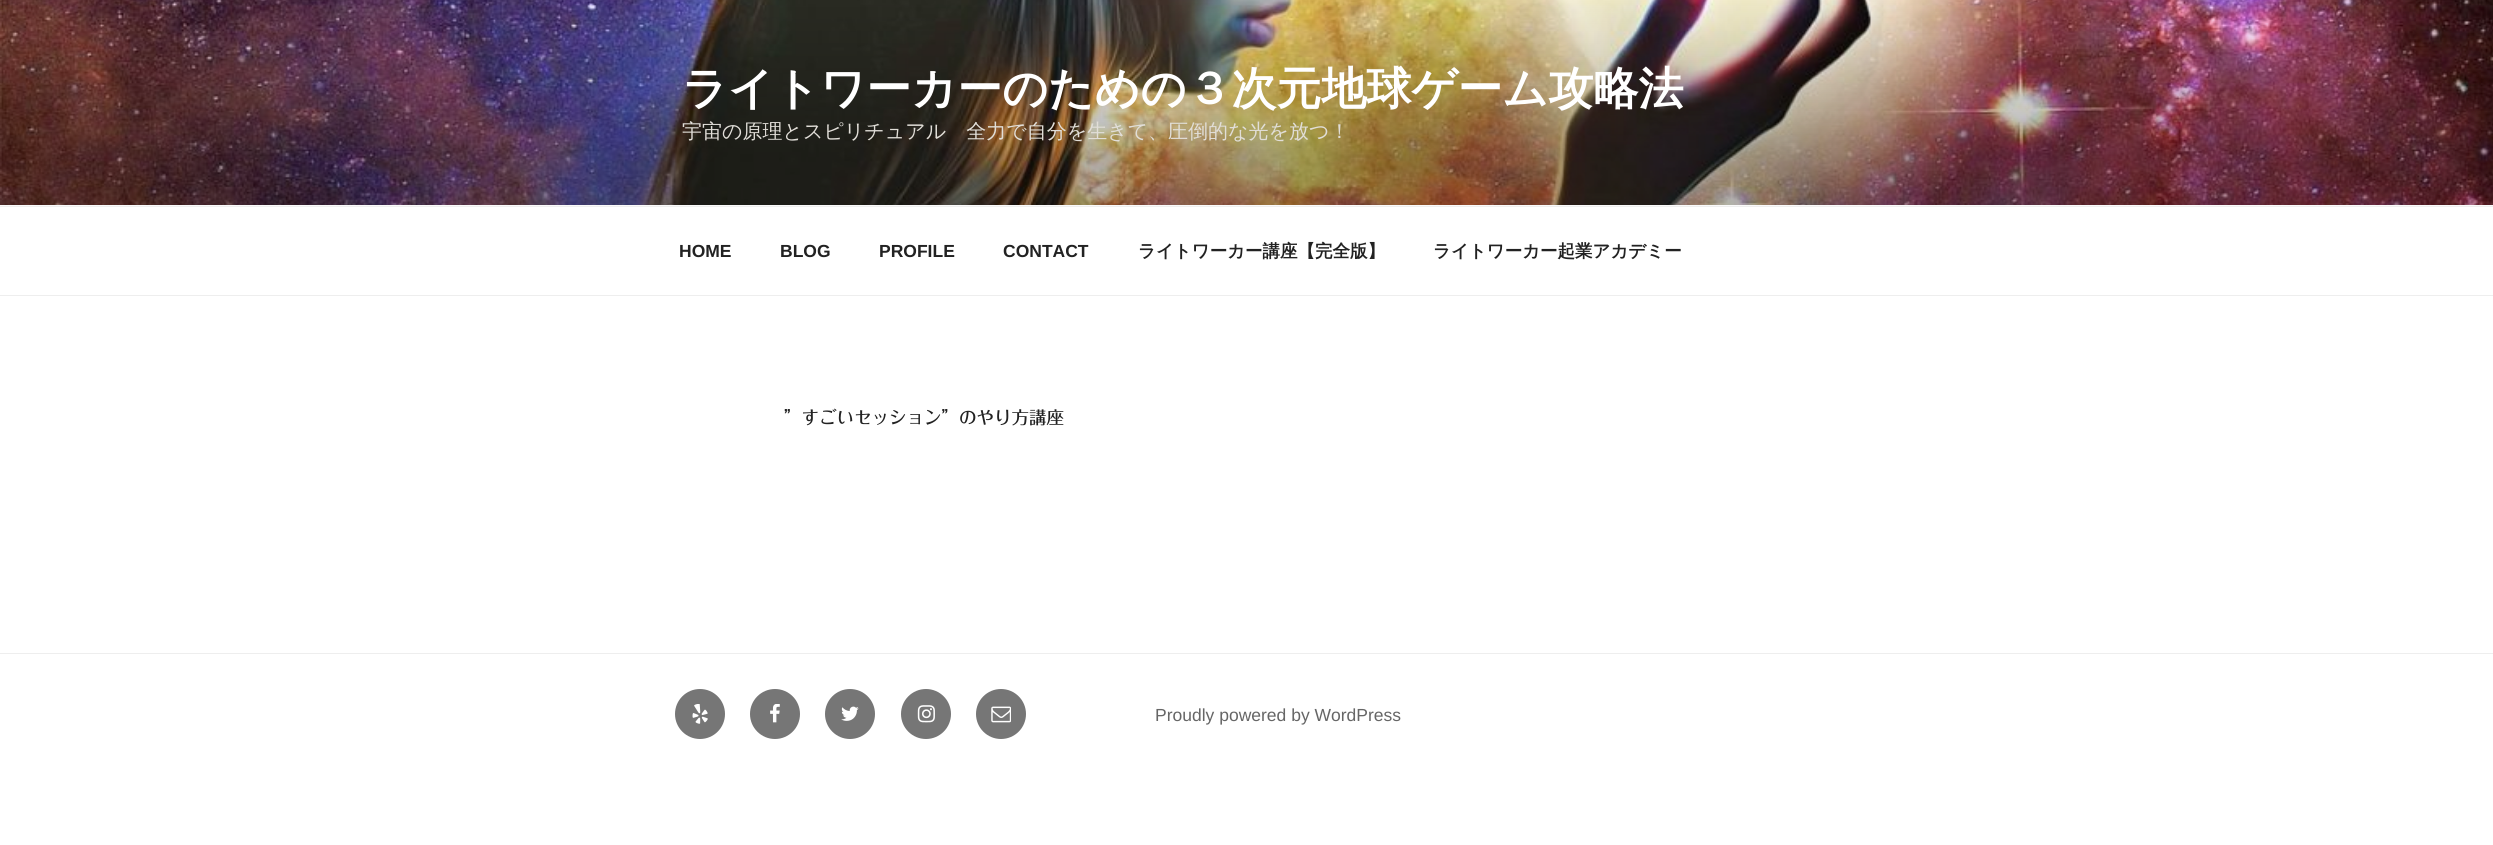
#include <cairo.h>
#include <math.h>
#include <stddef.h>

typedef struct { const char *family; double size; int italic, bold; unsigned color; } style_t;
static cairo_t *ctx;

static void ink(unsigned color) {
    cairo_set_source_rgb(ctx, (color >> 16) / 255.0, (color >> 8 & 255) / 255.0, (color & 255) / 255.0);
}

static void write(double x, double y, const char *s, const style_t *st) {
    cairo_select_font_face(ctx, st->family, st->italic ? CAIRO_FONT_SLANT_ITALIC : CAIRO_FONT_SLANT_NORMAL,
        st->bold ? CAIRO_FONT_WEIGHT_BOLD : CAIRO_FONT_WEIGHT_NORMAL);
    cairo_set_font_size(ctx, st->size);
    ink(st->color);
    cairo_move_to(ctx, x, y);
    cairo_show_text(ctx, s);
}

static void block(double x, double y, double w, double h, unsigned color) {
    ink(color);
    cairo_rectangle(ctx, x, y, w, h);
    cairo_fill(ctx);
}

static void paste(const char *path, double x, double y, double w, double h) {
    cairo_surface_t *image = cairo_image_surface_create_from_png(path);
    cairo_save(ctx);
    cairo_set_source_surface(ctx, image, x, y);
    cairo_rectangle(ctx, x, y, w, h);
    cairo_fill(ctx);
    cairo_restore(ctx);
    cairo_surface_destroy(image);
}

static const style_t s1 = {"WenQuanYi Zen Hei", 45, 0, 1, 0xffffff};
static const style_t s2 = {"WenQuanYi Zen Hei Medium", 20, 0, 0, 0xe1ded8};
static const style_t s3 = {"Liberation Sans", 17.5, 0, 1, 0x222222};
static const style_t s4 = {"WenQuanYi Zen Hei", 17.5, 0, 1, 0x222222};
static const style_t s5 = {"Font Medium", 17.5, 0, 0, 0x222222};
static const style_t s6 = {"Liberation Sans", 17.5, 0, 0, 0x666666};

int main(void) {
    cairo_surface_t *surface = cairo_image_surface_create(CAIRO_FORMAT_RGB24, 2493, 845);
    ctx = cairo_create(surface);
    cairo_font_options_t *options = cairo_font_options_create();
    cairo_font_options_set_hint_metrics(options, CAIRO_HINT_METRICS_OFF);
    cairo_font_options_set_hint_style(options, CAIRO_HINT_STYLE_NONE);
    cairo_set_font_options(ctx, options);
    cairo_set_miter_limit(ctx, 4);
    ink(0xffffff);
    cairo_paint(ctx);
    block(0, 205, 2493, 1, 0xfafafa);
    paste("pic1.png", 0, 0, 2493, 205);
    write(682, 104, "ライトワーカーのための３次元地球ゲーム攻略法", &s1);
    write(682, 138, "宇宙の原理とスピリチュアル　全力で自分を生きて、圧倒的な光を放つ！", &s2);
    block(0, 206, 2493, 1, 0xeeeeee);
    block(0, 295, 2493, 1, 0xeeeeee);
    write(679, 257, "HOME", &s3);
    write(780, 257, "BLOG", &s3);
    write(879, 257, "PROFILE", &s3);
    write(1003, 257, "CONTACT", &s3);
    write(1138, 257, "ライトワーカー講座【完全版】", &s4);
    write(1433, 257, "ライトワーカー起業アカデミー", &s4);
    write(784, 424, "”すごいセッション”のやり方講座", &s5);
    block(0, 653, 2493, 1, 0xeeeeee);
    ink(0x767676);
    cairo_new_path(ctx);
    cairo_arc(ctx, 700, 714, 25, 0, 2 * M_PI);
    cairo_fill(ctx);
    paste("pic2.png", 692, 704, 16, 20);
    cairo_arc(ctx, 775, 714, 25, 0, 2 * M_PI);
    cairo_fill(ctx);
    paste("pic3.png", 770, 704, 10, 19);
    cairo_arc(ctx, 850, 714, 25, 0, 2 * M_PI);
    cairo_fill(ctx);
    paste("pic4.png", 841, 706, 18, 15);
    cairo_arc(ctx, 926, 714, 25, 0, 2 * M_PI);
    cairo_fill(ctx);
    paste("pic5.png", 917, 705, 18, 18);
    cairo_arc(ctx, 1001, 714, 25, 0, 2 * M_PI);
    cairo_fill(ctx);
    paste("pic6.png", 991, 706, 20, 17);
    write(1155, 721, "Proudly powered by WordPress", &s6);
    cairo_surface_write_to_png(surface, "screenshot.png");
    cairo_font_options_destroy(options);
    cairo_destroy(ctx);
    cairo_surface_destroy(surface);
    return 0;
}
